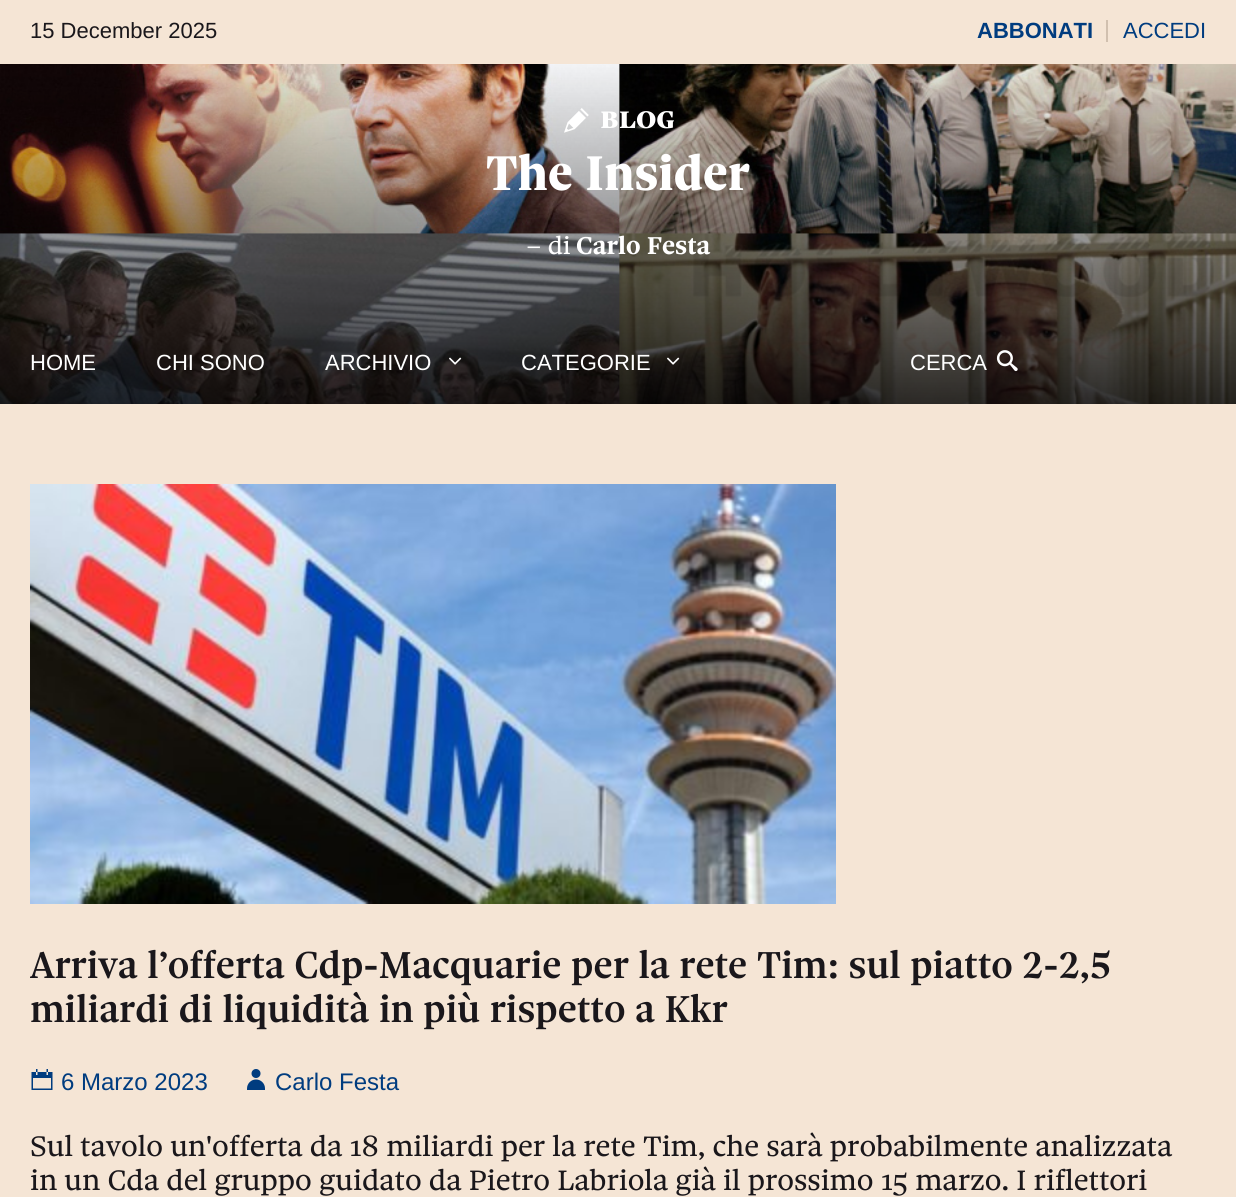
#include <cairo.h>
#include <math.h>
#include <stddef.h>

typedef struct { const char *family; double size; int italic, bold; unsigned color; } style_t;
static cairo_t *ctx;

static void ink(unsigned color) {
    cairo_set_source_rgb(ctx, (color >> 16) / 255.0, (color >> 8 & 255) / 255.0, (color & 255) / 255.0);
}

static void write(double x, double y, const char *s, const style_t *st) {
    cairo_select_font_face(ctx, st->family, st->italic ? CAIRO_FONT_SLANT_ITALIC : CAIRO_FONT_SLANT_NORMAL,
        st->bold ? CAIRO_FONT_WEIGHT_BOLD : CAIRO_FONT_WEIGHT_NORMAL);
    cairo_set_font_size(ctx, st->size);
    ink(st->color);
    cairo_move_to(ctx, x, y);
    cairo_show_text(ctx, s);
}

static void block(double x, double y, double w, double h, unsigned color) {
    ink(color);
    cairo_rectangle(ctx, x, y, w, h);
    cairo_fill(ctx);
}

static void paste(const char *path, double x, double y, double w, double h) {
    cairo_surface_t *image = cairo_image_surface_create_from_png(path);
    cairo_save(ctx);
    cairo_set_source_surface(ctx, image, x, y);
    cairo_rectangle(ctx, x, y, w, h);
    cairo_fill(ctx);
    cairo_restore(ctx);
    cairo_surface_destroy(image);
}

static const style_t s1 = {"Liberation Sans", 22, 0, 0, 0x1a171b};
static const style_t s2 = {"Liberation Sans", 22, 0, 1, 0x003c7f};
static const style_t s3 = {"Liberation Sans", 22, 0, 0, 0x003c7f};
static const style_t s4 = {"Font", 32, 0, 1, 0xffffff};
static const style_t s5 = {"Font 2", 52, 0, 1, 0xffffff};
static const style_t s6 = {"Font", 26, 0, 0, 0xffffff};
static const style_t s7 = {"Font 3", 26, 0, 1, 0xffffff};
static const style_t s8 = {"Liberation Sans", 22, 0, 0, 0xffffff};
static const style_t s9 = {"Font Medium", 40, 0, 0, 0x1a171b};
static const style_t s10 = {"Liberation Sans", 24, 0, 0, 0x003c7f};
static const style_t s11 = {"Font", 30, 0, 0, 0x1a171b};

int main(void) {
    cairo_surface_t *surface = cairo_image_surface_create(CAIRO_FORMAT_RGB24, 1236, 1197);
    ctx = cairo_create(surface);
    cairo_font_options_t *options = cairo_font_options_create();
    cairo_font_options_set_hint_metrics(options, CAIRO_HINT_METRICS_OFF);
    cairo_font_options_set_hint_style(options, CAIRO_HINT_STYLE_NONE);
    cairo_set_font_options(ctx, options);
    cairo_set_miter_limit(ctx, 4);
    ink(0xf5e5d5);
    cairo_paint(ctx);
    write(30, 38, "15 December 2025", &s1);
    block(1106, 20, 2, 22, 0xd1c0af);
    write(977, 38, "ABBONATI", &s2);
    write(1123, 38, "ACCEDI", &s3);
    paste("pic1.png", 0, 64, 1236, 340);
    paste("pic2.png", 564, 108, 25, 25);
    write(600, 128, "blog", &s4);
    write(486, 190, "The Insider", &s5);
    write(526, 254, "– di", &s6);
    write(576, 254, "Carlo Festa", &s7);
    write(30, 370, "HOME", &s8);
    write(156, 370, "CHI SONO", &s8);
    write(325, 370, "ARCHIVIO", &s8);
    paste("pic3.png", 449, 357, 13, 8);
    write(521, 370, "CATEGORIE", &s8);
    paste("pic4.png", 667, 357, 13, 8);
    write(910, 370, "CERCA", &s8);
    paste("pic5.png", 996, 350, 22, 22);
    paste("pic6.png", 30, 484, 806, 420);
    write(30, 978, "Arriva l’offerta Cdp-Macquarie per la rete Tim: sul piatto 2-2,5", &s9);
    write(30, 1022, "miliardi di liquidità in più rispetto a Kkr", &s9);
    paste("pic7.png", 31, 1069, 22, 21);
    write(61, 1090, "6 Marzo 2023", &s10);
    paste("pic8.png", 247, 1069, 18, 21);
    write(275, 1090, "Carlo Festa", &s10);
    write(30, 1156, "Sul tavolo un'offerta da 18 miliardi per la rete Tim, che sarà probabilmente analizzata", &s11);
    write(30, 1190, "in un Cda del gruppo guidato da Pietro Labriola già il prossimo 15 marzo. I riflettori", &s11);
    cairo_surface_write_to_png(surface, "screenshot.png");
    cairo_font_options_destroy(options);
    cairo_destroy(ctx);
    cairo_surface_destroy(surface);
    return 0;
}
